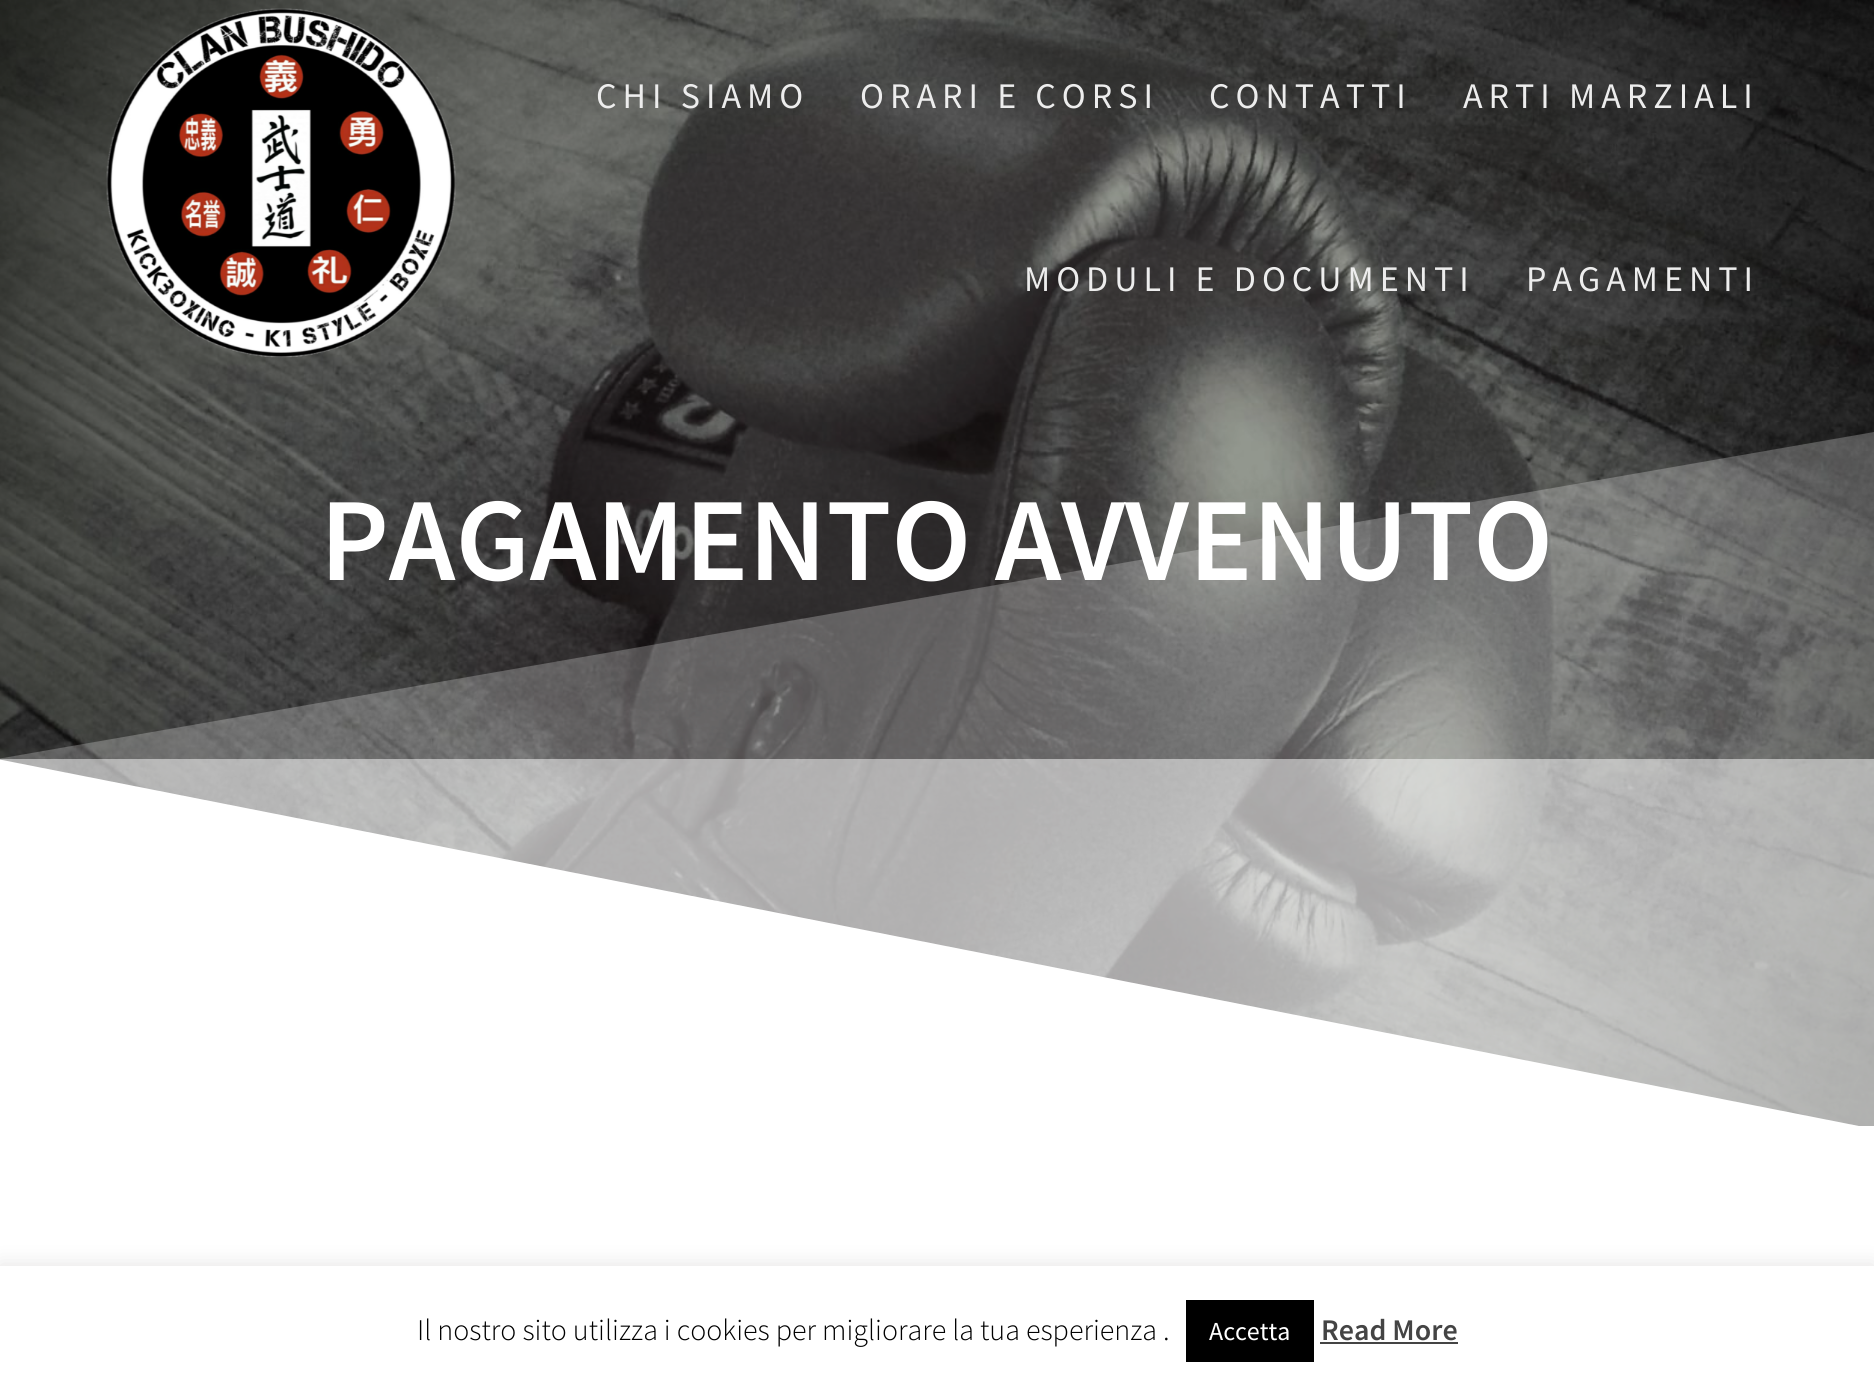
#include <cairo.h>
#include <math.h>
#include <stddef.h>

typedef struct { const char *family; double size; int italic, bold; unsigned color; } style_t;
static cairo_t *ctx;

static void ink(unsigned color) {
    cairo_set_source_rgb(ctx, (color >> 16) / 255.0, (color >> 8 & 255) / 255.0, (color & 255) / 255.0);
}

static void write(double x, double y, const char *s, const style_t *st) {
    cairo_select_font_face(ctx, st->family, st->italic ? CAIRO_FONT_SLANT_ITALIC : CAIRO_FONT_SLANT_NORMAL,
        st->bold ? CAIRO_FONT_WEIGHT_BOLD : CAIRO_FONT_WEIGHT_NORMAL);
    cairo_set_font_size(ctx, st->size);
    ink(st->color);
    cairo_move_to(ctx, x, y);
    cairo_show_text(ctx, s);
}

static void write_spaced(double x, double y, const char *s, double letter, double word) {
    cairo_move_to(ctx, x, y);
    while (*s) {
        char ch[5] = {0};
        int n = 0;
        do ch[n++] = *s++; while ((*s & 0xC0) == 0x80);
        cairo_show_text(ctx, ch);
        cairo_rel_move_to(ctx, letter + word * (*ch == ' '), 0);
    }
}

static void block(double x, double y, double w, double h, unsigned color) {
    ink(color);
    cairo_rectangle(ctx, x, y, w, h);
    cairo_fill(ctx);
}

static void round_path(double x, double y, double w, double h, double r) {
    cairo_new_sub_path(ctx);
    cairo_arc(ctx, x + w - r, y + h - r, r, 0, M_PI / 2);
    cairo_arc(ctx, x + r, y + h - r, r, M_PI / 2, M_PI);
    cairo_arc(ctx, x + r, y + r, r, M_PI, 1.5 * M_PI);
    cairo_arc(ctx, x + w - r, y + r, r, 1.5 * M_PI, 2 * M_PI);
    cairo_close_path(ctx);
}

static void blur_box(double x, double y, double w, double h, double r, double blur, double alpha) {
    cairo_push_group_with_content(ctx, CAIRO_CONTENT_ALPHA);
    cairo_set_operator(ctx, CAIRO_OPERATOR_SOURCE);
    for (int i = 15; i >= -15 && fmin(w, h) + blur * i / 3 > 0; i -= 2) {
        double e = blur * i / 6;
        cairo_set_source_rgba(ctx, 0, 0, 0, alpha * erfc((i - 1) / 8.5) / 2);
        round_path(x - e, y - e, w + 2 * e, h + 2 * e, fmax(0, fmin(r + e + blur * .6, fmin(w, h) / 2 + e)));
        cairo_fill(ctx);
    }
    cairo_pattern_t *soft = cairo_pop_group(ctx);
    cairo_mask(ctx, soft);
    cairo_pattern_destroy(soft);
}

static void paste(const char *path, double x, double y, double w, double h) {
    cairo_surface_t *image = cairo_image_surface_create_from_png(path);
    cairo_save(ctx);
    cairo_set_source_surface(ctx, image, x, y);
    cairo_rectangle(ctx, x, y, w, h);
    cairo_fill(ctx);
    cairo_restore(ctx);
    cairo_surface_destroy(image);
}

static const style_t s1 = {"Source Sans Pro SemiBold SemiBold", 118.75, 0, 0, 0xffffff};
static const style_t s2 = {"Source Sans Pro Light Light", 30, 0, 0, 0x000000};
static const style_t s3 = {"Source Sans Pro", 26, 0, 0, 0xffffff};
static const style_t s4 = {"Source Sans Pro SemiBold SemiBold", 30, 0, 0, 0x444444};

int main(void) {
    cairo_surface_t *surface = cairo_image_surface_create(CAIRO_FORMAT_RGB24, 1874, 1386);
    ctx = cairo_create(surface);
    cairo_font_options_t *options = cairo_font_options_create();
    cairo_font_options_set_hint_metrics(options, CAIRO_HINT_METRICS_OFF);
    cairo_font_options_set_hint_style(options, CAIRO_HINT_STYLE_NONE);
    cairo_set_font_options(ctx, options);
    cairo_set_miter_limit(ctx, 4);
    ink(0xffffff);
    cairo_paint(ctx);
    paste("pic2.png", 0, 0, 1874, 1126);
    paste("pic1.png", 106, 8, 350, 350);
    cairo_select_font_face(ctx, "Source Sans Pro", CAIRO_FONT_SLANT_NORMAL, CAIRO_FONT_WEIGHT_NORMAL);
    cairo_set_font_size(ctx, 36);
    ink(0xededed);
    write_spaced(596, 108, "CHI SIAMO", 6, 0);
    write_spaced(860, 108, "ORARI E CORSI", 6, 0);
    write_spaced(1209, 108, "CONTATTI", 6, 0);
    write_spaced(1463, 108, "ARTI MARZIALI", 6, 0);
    write_spaced(1024, 291, "MODULI E DOCUMENTI", 6, 0);
    write_spaced(1526, 291, "PAGAMENTI", 6, 0);
    cairo_save(ctx);
    cairo_rectangle(ctx, 0, 426, 1874, 702);
    cairo_clip(ctx);
    ink(0xffffff);
    cairo_new_path(ctx);
    cairo_move_to(ctx, 1874, 1129);
    cairo_line_to(ctx, -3, 1129);
    cairo_line_to(ctx, -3, 759);
    cairo_close_path(ctx);
    cairo_fill(ctx);
    cairo_restore(ctx);
    cairo_set_source_rgba(ctx, 1, 1, 1, 0.5);
    cairo_rectangle(ctx, 0, 759, 1874, 367);
    cairo_fill(ctx);
    write(320, 580, "PAGAMENTO AVVENUTO", &s1);
    cairo_save(ctx);
    cairo_rectangle(ctx, 0, 426, 1874, 702);
    cairo_clip(ctx);
    cairo_set_source_rgba(ctx, 1, 1, 1, 0.25);
    cairo_new_path(ctx);
    cairo_move_to(ctx, -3, 1129);
    cairo_line_to(ctx, 1874, 1129);
    cairo_line_to(ctx, 1874, 432);
    cairo_line_to(ctx, -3, 759);
    cairo_close_path(ctx);
    cairo_fill(ctx);
    cairo_restore(ctx);
    ink(0xacabab);
    blur_box(0, 1264, 1874, 120, 0, 10, 0.3);
    block(0, 1266, 1874, 120, 0xffffff);
    write(417, 1340, "Il nostro sito utilizza i cookies per migliorare la tua esperienza .", &s2);
    block(1186, 1300, 128, 62, 0x000000);
    write(1209, 1340, "Accetta", &s3);
    write(1321, 1340, "Read More", &s4);
    block(1320, 1342, 138, 2, 0x444444);
    cairo_surface_write_to_png(surface, "screenshot.png");
    cairo_font_options_destroy(options);
    cairo_destroy(ctx);
    cairo_surface_destroy(surface);
    return 0;
}
